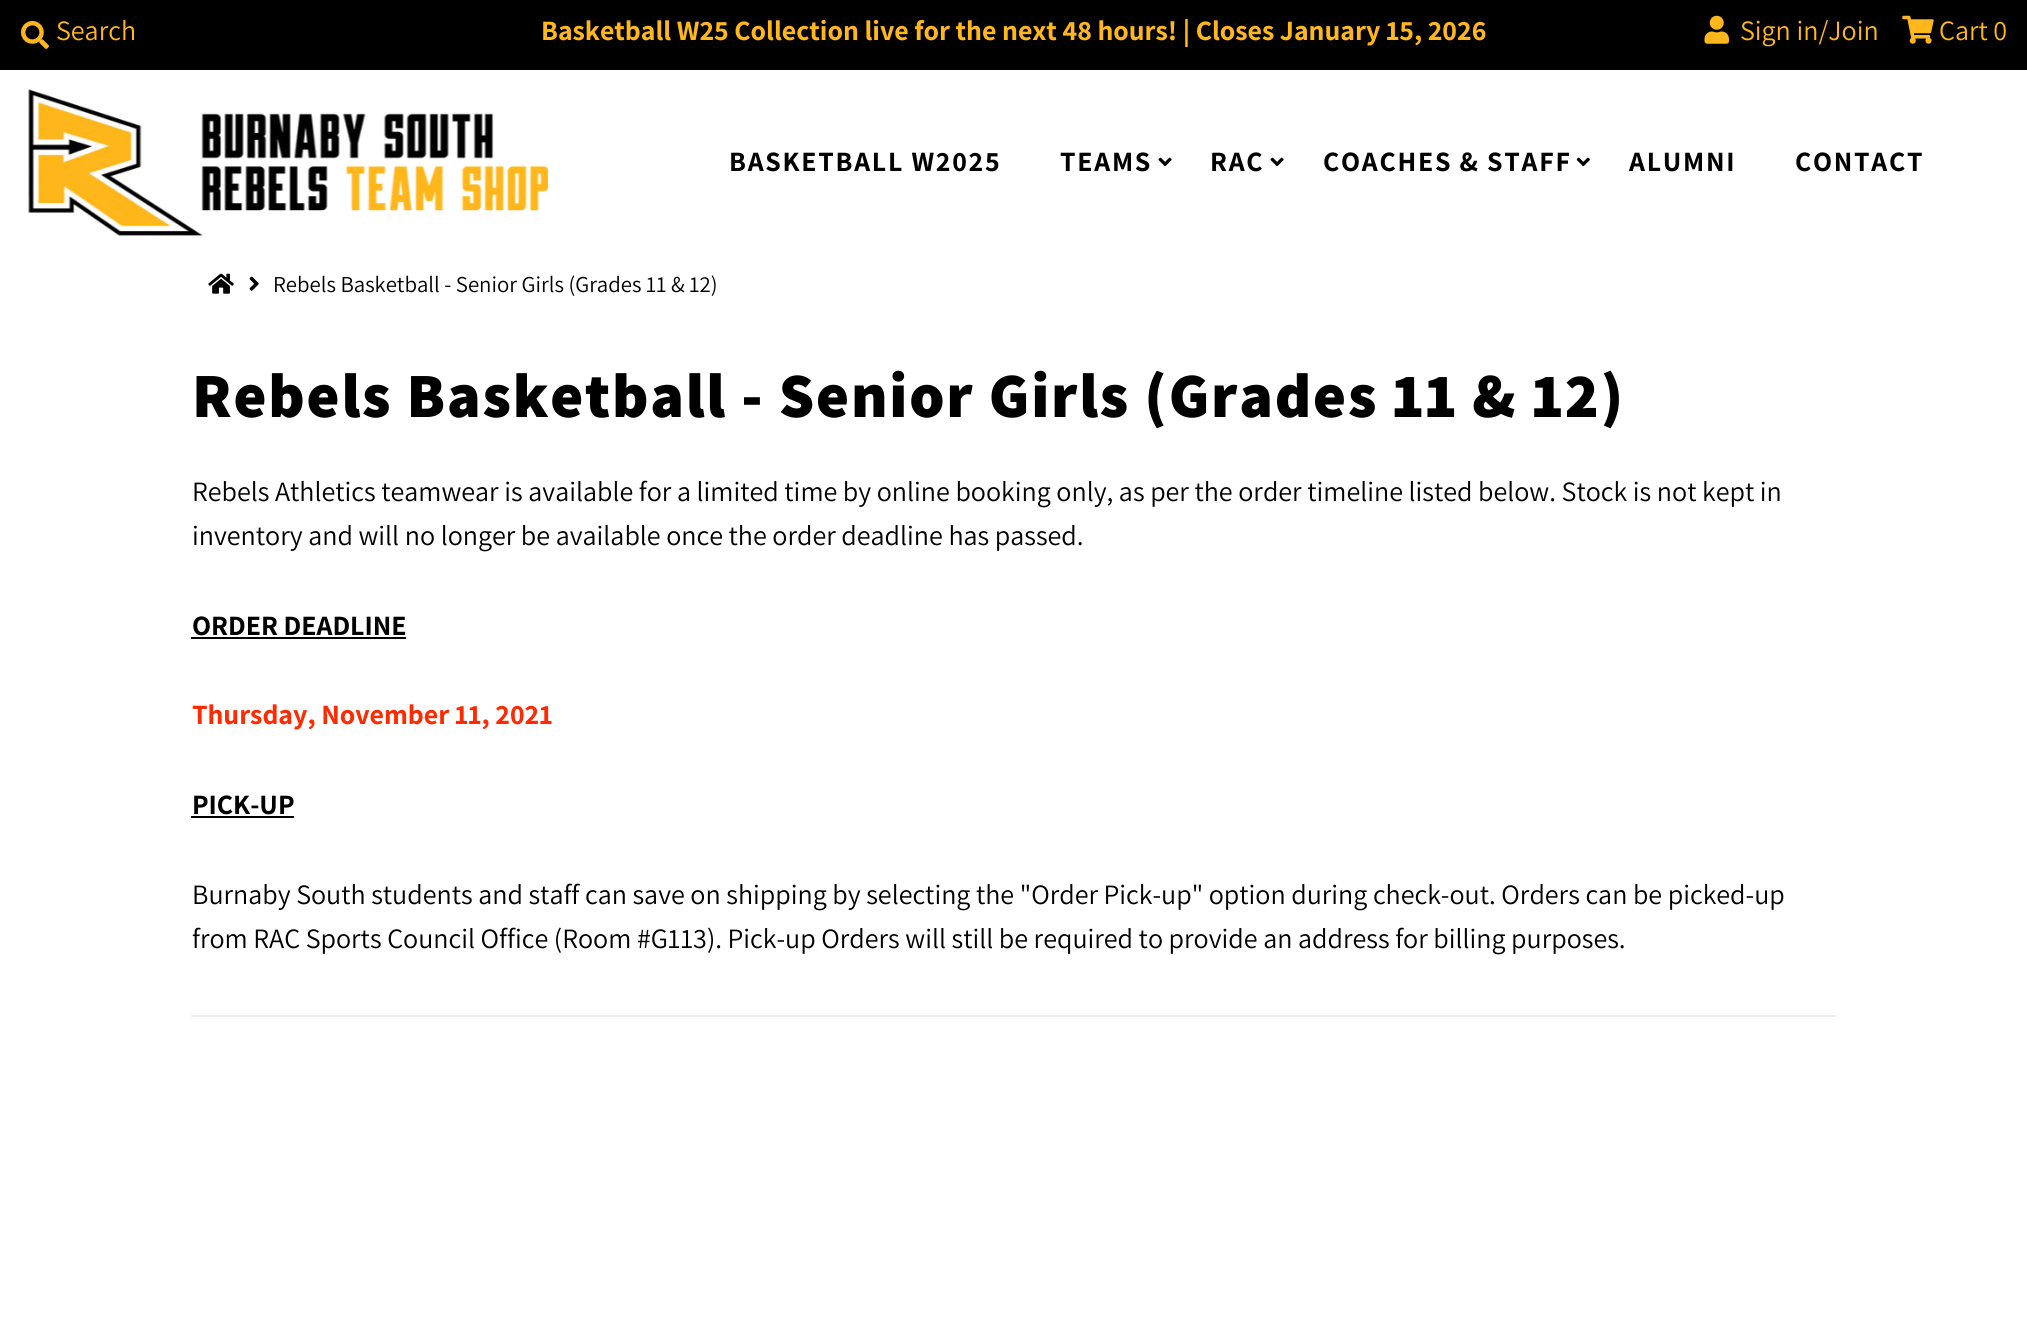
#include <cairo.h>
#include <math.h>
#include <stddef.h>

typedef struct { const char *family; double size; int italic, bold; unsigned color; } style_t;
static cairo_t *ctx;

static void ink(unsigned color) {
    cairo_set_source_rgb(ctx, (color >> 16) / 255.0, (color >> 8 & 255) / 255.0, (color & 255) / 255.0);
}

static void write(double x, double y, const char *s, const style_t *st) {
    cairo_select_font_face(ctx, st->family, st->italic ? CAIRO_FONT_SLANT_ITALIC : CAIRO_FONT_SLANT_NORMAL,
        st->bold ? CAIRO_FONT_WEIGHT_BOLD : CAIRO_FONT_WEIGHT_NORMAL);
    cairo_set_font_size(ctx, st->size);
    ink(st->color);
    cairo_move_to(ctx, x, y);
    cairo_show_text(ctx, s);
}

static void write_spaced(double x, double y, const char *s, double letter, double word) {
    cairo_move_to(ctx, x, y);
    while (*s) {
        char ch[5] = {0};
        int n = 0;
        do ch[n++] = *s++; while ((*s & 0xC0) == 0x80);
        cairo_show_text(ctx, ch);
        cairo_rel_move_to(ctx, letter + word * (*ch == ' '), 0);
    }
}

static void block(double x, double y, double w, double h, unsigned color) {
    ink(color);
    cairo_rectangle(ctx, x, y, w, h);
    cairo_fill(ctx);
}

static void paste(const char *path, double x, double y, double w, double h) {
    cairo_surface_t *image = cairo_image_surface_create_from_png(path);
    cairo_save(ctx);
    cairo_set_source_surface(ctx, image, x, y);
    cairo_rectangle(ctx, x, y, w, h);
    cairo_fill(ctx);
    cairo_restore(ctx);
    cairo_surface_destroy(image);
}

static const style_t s1 = {"Assistant", 28, 0, 0, 0xffb71b};
static const style_t s2 = {"Assistant", 28, 0, 1, 0xffb71b};
static const style_t s3 = {"Assistant", 22.75, 0, 0, 0x000000};
static const style_t s4 = {"Assistant", 28, 0, 0, 0x000000};
static const style_t s5 = {"Assistant", 28, 0, 1, 0x000000};
static const style_t s6 = {"Assistant", 28, 0, 1, 0xff2a00};

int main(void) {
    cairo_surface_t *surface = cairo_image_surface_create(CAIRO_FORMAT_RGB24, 2027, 1333);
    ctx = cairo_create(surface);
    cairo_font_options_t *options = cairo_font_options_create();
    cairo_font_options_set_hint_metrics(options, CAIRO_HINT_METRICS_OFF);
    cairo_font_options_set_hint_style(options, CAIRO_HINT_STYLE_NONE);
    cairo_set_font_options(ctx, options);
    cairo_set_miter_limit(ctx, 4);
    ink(0xffffff);
    cairo_paint(ctx);
    block(0, 0, 2027, 70, 0x000000);
    paste("pic1.png", 21, 21, 28, 28);
    write(56, 40, "Search", &s1);
    write(541, 40, "Basketball W25 Collection live for the next 48 hours! | Closes January 15, 2026", &s2);
    paste("pic2.png", 1704, 15, 25, 29);
    write(1740, 40, "Sign in/Join", &s1);
    paste("pic3.png", 1902, 15, 32, 29);
    write(1939, 40, "Cart 0", &s1);
    paste("pic4.png", 28, 89, 520, 147);
    cairo_select_font_face(ctx, "Assistant", CAIRO_FONT_SLANT_NORMAL, CAIRO_FONT_WEIGHT_BOLD);
    ink(0x000000);
    write_spaced(729, 171, "BASKETBALL W2025", 1.75, 0);
    write_spaced(1060, 171, "TEAMS", 1.75, 0);
    paste("pic5.png", 1158, 157, 14, 10);
    write_spaced(1210, 171, "RAC", 1.75, 0);
    paste("pic5.png", 1270, 157, 14, 10);
    write_spaced(1323, 171, "COACHES & STAFF", 1.75, 0);
    paste("pic6.png", 1576, 157, 14, 10);
    write_spaced(1629, 171, "ALUMNI", 1.75, 0);
    write_spaced(1795, 171, "CONTACT", 1.75, 0);
    paste("pic7.png", 208, 273, 26, 21);
    paste("pic8.png", 249, 276, 10, 15);
    write(273, 292, "Rebels Basketball - Senior Girls (Grades 11 & 12)", &s3);
    cairo_select_font_face(ctx, "Assistant ExtraBold", CAIRO_FONT_SLANT_NORMAL, CAIRO_FONT_WEIGHT_NORMAL);
    cairo_set_font_size(ctx, 63);
    write_spaced(192, 417, "Rebels Basketball - Senior Girls (Grades 11 & 12)", 1.75, 0);
    write(192, 501, "Rebels Athletics teamwear is available for a limited time by online booking only, as per the order timeline listed below. Stock is not kept in", &s4);
    write(192, 545, "inventory and will no longer be available once the order deadline has passed.", &s4);
    write(192, 635, "ORDER DEADLINE", &s5);
    block(191, 637, 215, 2, 0x000000);
    write(192, 724, "Thursday, November 11, 2021", &s6);
    write(192, 814, "PICK-UP", &s5);
    block(191, 816, 103, 2, 0x000000);
    write(192, 904, "Burnaby South students and staff can save on shipping by selecting the \"Order Pick-up\" option during check-out. Orders can be picked-up", &s4);
    write(192, 948, "from RAC Sports Council Office (Room #G113). Pick-up Orders will still be required to provide an address for billing purposes.", &s4);
    block(191, 1015, 1645, 2, 0xeeeeee);
    cairo_surface_write_to_png(surface, "screenshot.png");
    cairo_font_options_destroy(options);
    cairo_destroy(ctx);
    cairo_surface_destroy(surface);
    return 0;
}
